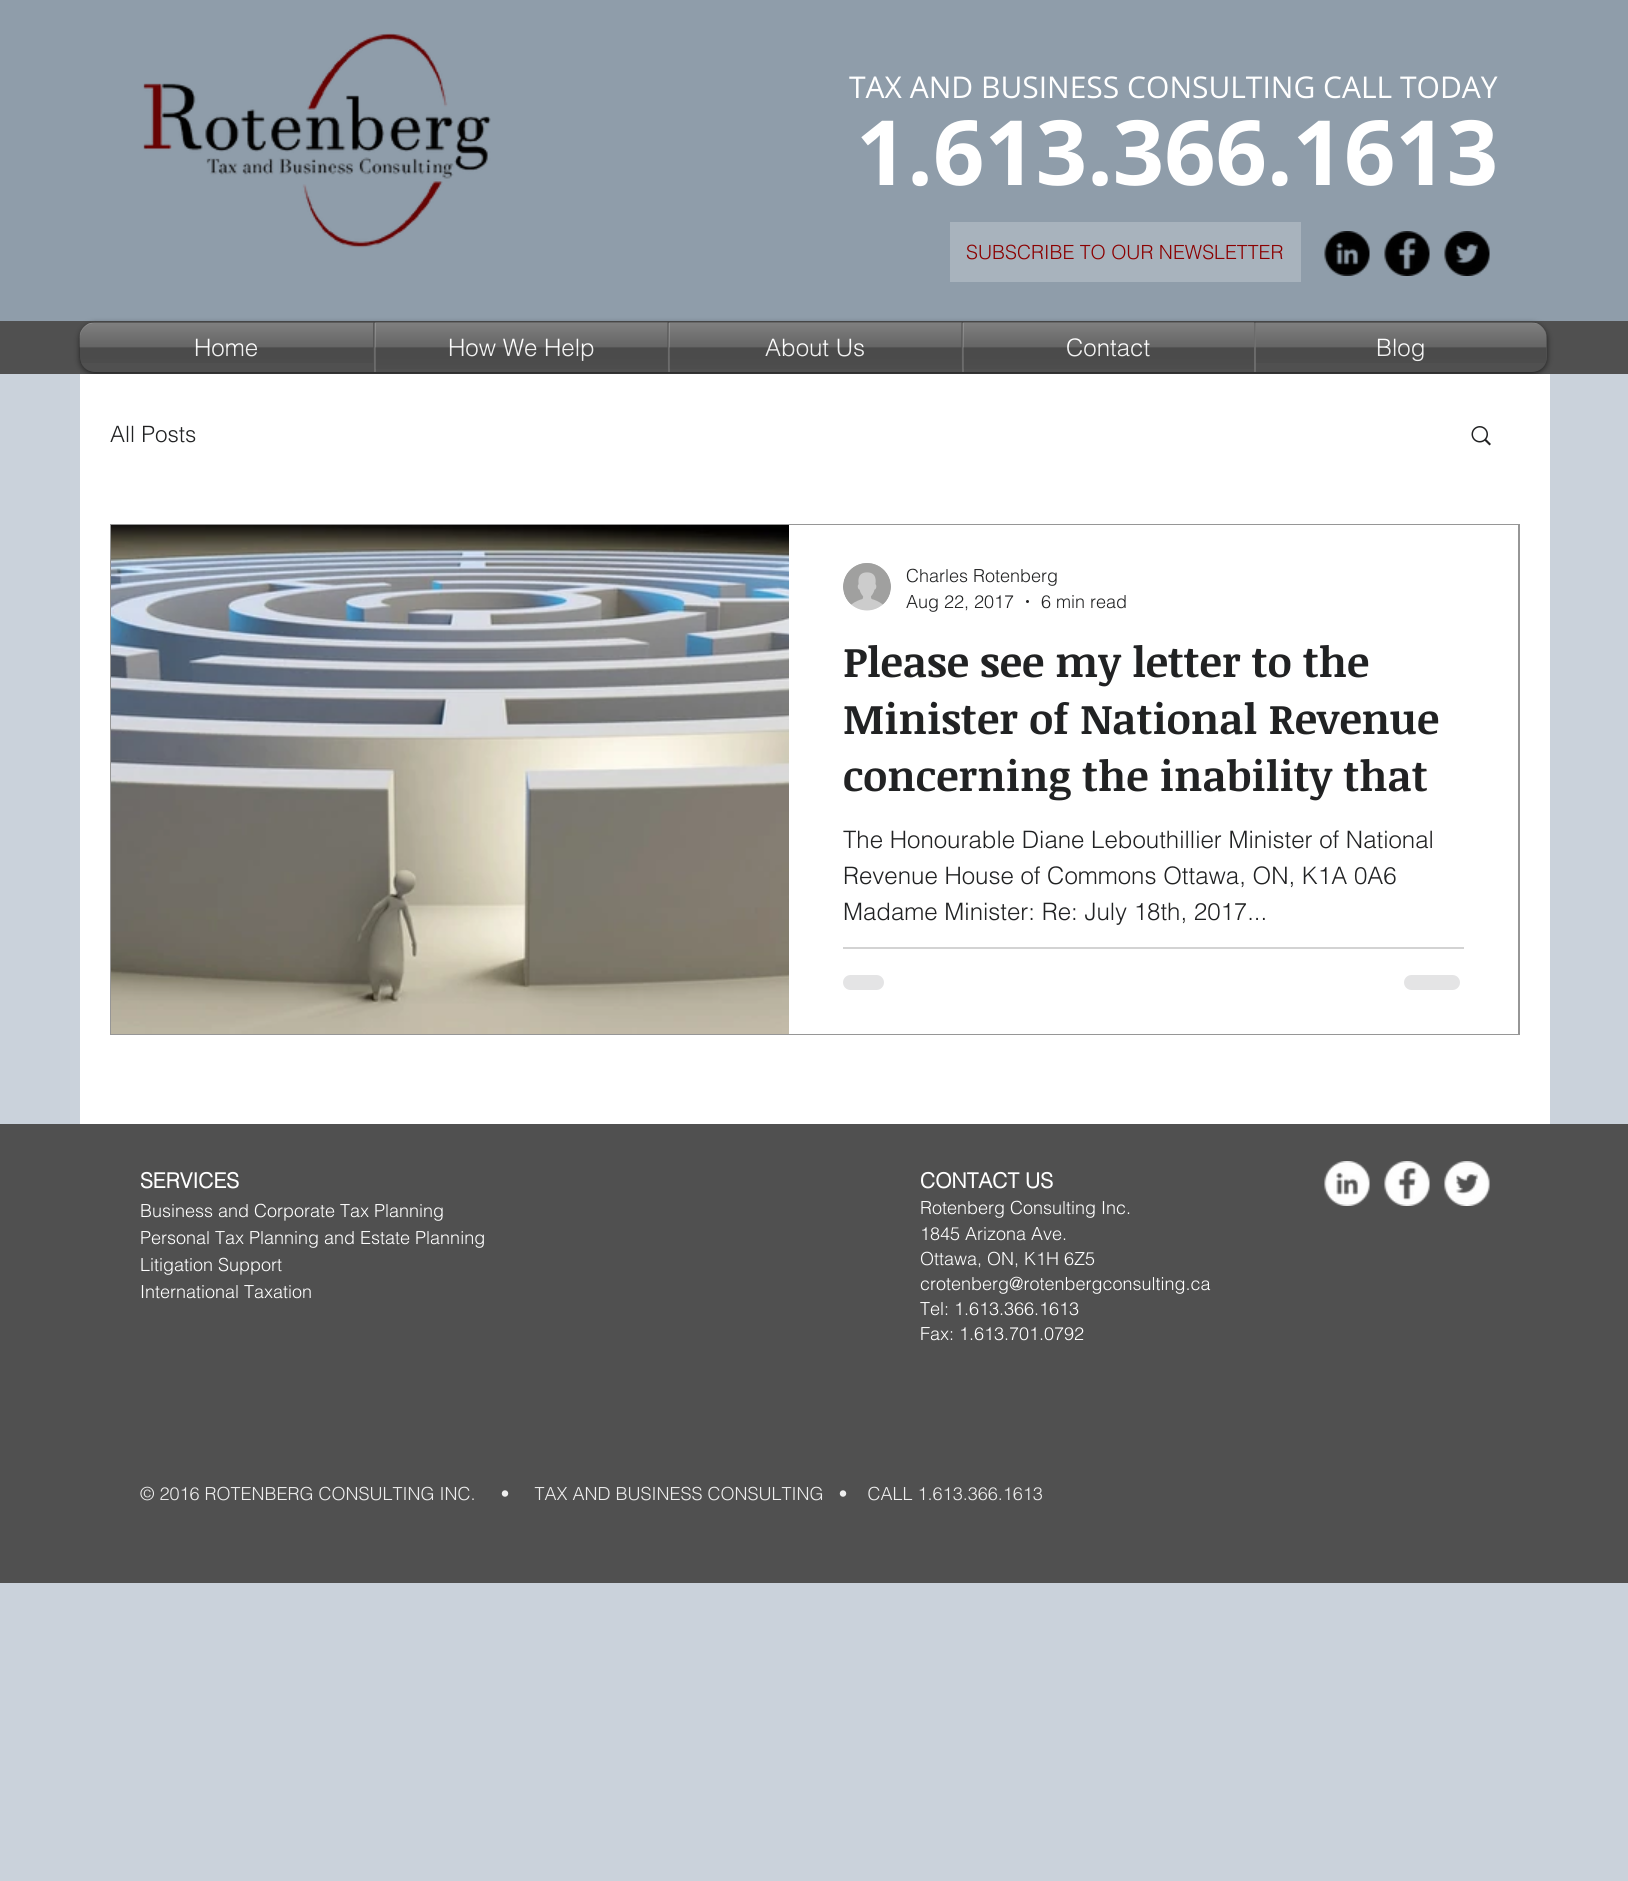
#include <cairo.h>
#include <math.h>
#include <stddef.h>

typedef struct { const char *family; double size; int italic, bold; unsigned color; } style_t;
static cairo_t *ctx;

static void ink(unsigned color) {
    cairo_set_source_rgb(ctx, (color >> 16) / 255.0, (color >> 8 & 255) / 255.0, (color & 255) / 255.0);
}

static void write(double x, double y, const char *s, const style_t *st) {
    cairo_select_font_face(ctx, st->family, st->italic ? CAIRO_FONT_SLANT_ITALIC : CAIRO_FONT_SLANT_NORMAL,
        st->bold ? CAIRO_FONT_WEIGHT_BOLD : CAIRO_FONT_WEIGHT_NORMAL);
    cairo_set_font_size(ctx, st->size);
    ink(st->color);
    cairo_move_to(ctx, x, y);
    cairo_show_text(ctx, s);
}

static void block(double x, double y, double w, double h, unsigned color) {
    ink(color);
    cairo_rectangle(ctx, x, y, w, h);
    cairo_fill(ctx);
}

static void round_path(double x, double y, double w, double h, double r) {
    cairo_new_sub_path(ctx);
    cairo_arc(ctx, x + w - r, y + h - r, r, 0, M_PI / 2);
    cairo_arc(ctx, x + r, y + h - r, r, M_PI / 2, M_PI);
    cairo_arc(ctx, x + r, y + r, r, M_PI, 1.5 * M_PI);
    cairo_arc(ctx, x + w - r, y + r, r, 1.5 * M_PI, 2 * M_PI);
    cairo_close_path(ctx);
}

static void blur_box(double x, double y, double w, double h, double r, double blur, double alpha) {
    cairo_push_group_with_content(ctx, CAIRO_CONTENT_ALPHA);
    cairo_set_operator(ctx, CAIRO_OPERATOR_SOURCE);
    for (int i = 15; i >= -15 && fmin(w, h) + blur * i / 3 > 0; i -= 2) {
        double e = blur * i / 6;
        cairo_set_source_rgba(ctx, 0, 0, 0, alpha * erfc((i - 1) / 8.5) / 2);
        round_path(x - e, y - e, w + 2 * e, h + 2 * e, fmax(0, fmin(r + e + blur * .6, fmin(w, h) / 2 + e)));
        cairo_fill(ctx);
    }
    cairo_pattern_t *soft = cairo_pop_group(ctx);
    cairo_mask(ctx, soft);
    cairo_pattern_destroy(soft);
}

static void paste(const char *path, double x, double y, double w, double h) {
    cairo_surface_t *image = cairo_image_surface_create_from_png(path);
    cairo_save(ctx);
    cairo_set_source_surface(ctx, image, x, y);
    cairo_rectangle(ctx, x, y, w, h);
    cairo_fill(ctx);
    cairo_restore(ctx);
    cairo_surface_destroy(image);
}

static const style_t s1 = {"Open Sans", 30, 0, 0, 0xffffff};
static const style_t s2 = {"Open Sans", 90, 0, 1, 0xffffff};
static const style_t s3 = {"helvetica Light", 19.5, 0, 0, 0x8b0000};
static const style_t s4 = {"helvetica Light", 24, 0, 0, 0xffffff};
static const style_t s5 = {"helvetica Light", 22.5, 0, 0, 0x212223};
static const style_t s6 = {"helvetica Light", 18, 0, 0, 0x212223};
static const style_t s7 = {"Noticia Text", 42, 0, 1, 0x212223};
static const style_t s8 = {"helvetica Light", 24, 0, 0, 0x212223};
static const style_t s9 = {"helvetica", 21, 0, 1, 0xffffff};
static const style_t s10 = {"helvetica Light", 18, 0, 0, 0xffffff};
static const style_t s11 = {"helvetica Light", 18, 0, 0, 0xeeeeee};

int main(void) {
    cairo_surface_t *surface = cairo_image_surface_create(CAIRO_FORMAT_RGB24, 1628, 1881);
    ctx = cairo_create(surface);
    cairo_font_options_t *options = cairo_font_options_create();
    cairo_font_options_set_hint_metrics(options, CAIRO_HINT_METRICS_OFF);
    cairo_font_options_set_hint_style(options, CAIRO_HINT_STYLE_NONE);
    cairo_set_font_options(ctx, options);
    cairo_set_miter_limit(ctx, 4);
    ink(0xcad2db);
    cairo_paint(ctx);
    block(0, 0, 1628, 321, 0x8f9daa);
    paste("pic1.png", 143, 33, 348, 215);
    write(849, 98, "TAX AND BUSINESS CONSULTING CALL TODAY", &s1);
    write(856, 185, "1.613.366.1613", &s2);
    block(950, 222, 351, 60, 0xa8b3bd);
    write(966, 259, "SUBSCRIBE TO OUR NEWSLETTER", &s3);
    paste("pic2.png", 1324, 231, 46, 45);
    paste("pic3.png", 1384, 231, 46, 45);
    paste("pic4.png", 1444, 231, 46, 45);
    block(0, 321, 1628, 53, 0x505050);
    ink(0x000000);
    blur_box(80, 324, 1467, 50, 15, 3, 0.6);
    paste("pic5.png", 79, 322, 1468, 41);
    ink(0x505050);
    cairo_new_path(ctx);
    cairo_move_to(ctx, 95, 323);
    cairo_line_to(ctx, 374, 323);
    cairo_line_to(ctx, 374, 372);
    cairo_line_to(ctx, 95, 372);
    cairo_curve_to(ctx, 86.5, 372, 80, 365.5, 80, 357);
    cairo_line_to(ctx, 80, 338);
    cairo_curve_to(ctx, 80, 329.5, 86.5, 323, 95, 323);
    cairo_close_path(ctx);
    cairo_fill(ctx);
    write(194, 356, "Home", &s4);
    paste("pic6.png", 79, 322, 295, 41);
    block(376, 323, 292, 49, 0x505050);
    block(374, 323, 2, 49, 0x6b6b6b);
    write(448, 356, "How We Help", &s4);
    paste("pic7.png", 375, 322, 293, 47);
    block(670, 323, 292, 49, 0x505050);
    block(668, 323, 2, 49, 0x6b6b6b);
    write(765, 356, "About Us", &s4);
    paste("pic8.png", 669, 322, 293, 47);
    block(964, 323, 290, 49, 0x505050);
    block(962, 323, 2, 49, 0x6b6b6b);
    write(1066, 356, "Contact", &s4);
    paste("pic9.png", 963, 322, 291, 47);
    ink(0x505050);
    cairo_new_path(ctx);
    cairo_move_to(ctx, 1254, 323);
    cairo_line_to(ctx, 1532, 323);
    cairo_curve_to(ctx, 1540.5, 323, 1547, 329.5, 1547, 338);
    cairo_line_to(ctx, 1547, 357);
    cairo_curve_to(ctx, 1547, 365.5, 1540.5, 372, 1532, 372);
    cairo_line_to(ctx, 1254, 372);
    cairo_close_path(ctx);
    cairo_fill(ctx);
    block(1254, 323, 2, 49, 0x6b6b6b);
    write(1376, 356, "Blog", &s4);
    paste("pic10.png", 1255, 322, 292, 41);
    block(80, 374, 1470, 750, 0xffffff);
    write(110, 442, "All Posts", &s5);
    paste("pic11.png", 1471, 426, 20, 20);
    cairo_rectangle(ctx, 111, 525, 1408, 509);
    ink(0x969696);
    cairo_stroke(ctx);
    paste("pic12.png", 111, 525, 678, 509);
    block(789, 525, 729, 509, 0xffffff);
    paste("pic13.png", 843, 563, 48, 48);
    write(906, 582, "Charles Rotenberg", &s6);
    write(906, 608, "Aug 22, 2017", &s6);
    cairo_new_path(ctx);
    cairo_arc(ctx, 1027.5, 601.5, 1.5, 0, 2 * M_PI);
    cairo_fill(ctx);
    write(1041, 608, "6 min read", &s6);
    write(843, 677, "Please see my letter to the", &s7);
    write(843, 734, "Minister of National Revenue", &s7);
    write(843, 791, "concerning the inability that", &s7);
    write(843, 848, "The Honourable Diane Lebouthillier Minister of National", &s8);
    write(843, 884, "Revenue House of Commons Ottawa, ON, K1A 0A6", &s8);
    write(843, 920, "Madame Minister: Re: July 18th, 2017...", &s8);
    block(843, 947, 621, 2, 0xd3d3d3);
    ink(0xe4e4e5);
    round_path(843, 975, 41, 15, 7.5);
    cairo_fill(ctx);
    round_path(1404, 975, 56, 15, 7.5);
    cairo_fill(ctx);
    block(0, 1124, 1628, 459, 0x505050);
    write(140, 1188, "SERVICES", &s9);
    write(140, 1217, "Business and Corporate Tax Planning", &s10);
    write(140, 1244, "Personal Tax Planning and Estate Planning", &s10);
    write(140, 1271, "Litigation Support", &s10);
    write(140, 1298, "International Taxation", &s10);
    write(920, 1188, "CONTACT US", &s9);
    write(920, 1214, "Rotenberg Consulting Inc.", &s10);
    write(920, 1240, "1845 Arizona Ave.", &s10);
    write(920, 1265, "Ottawa, ON, K1H 6Z5", &s10);
    write(920, 1290, "crotenberg@rotenbergconsulting.ca", &s10);
    write(920, 1315, "Tel: 1.613.366.1613", &s10);
    write(920, 1340, "Fax: 1.613.701.0792", &s10);
    paste("pic14.png", 1324, 1161, 46, 45);
    paste("pic15.png", 1384, 1161, 46, 45);
    paste("pic16.png", 1444, 1161, 46, 45);
    write(140, 1500, "© 2016 ROTENBERG CONSULTING INC.     •     TAX AND BUSINESS CONSULTING   •    CALL 1.613.366.1613", &s11);
    cairo_surface_write_to_png(surface, "screenshot.png");
    cairo_font_options_destroy(options);
    cairo_destroy(ctx);
    cairo_surface_destroy(surface);
    return 0;
}
